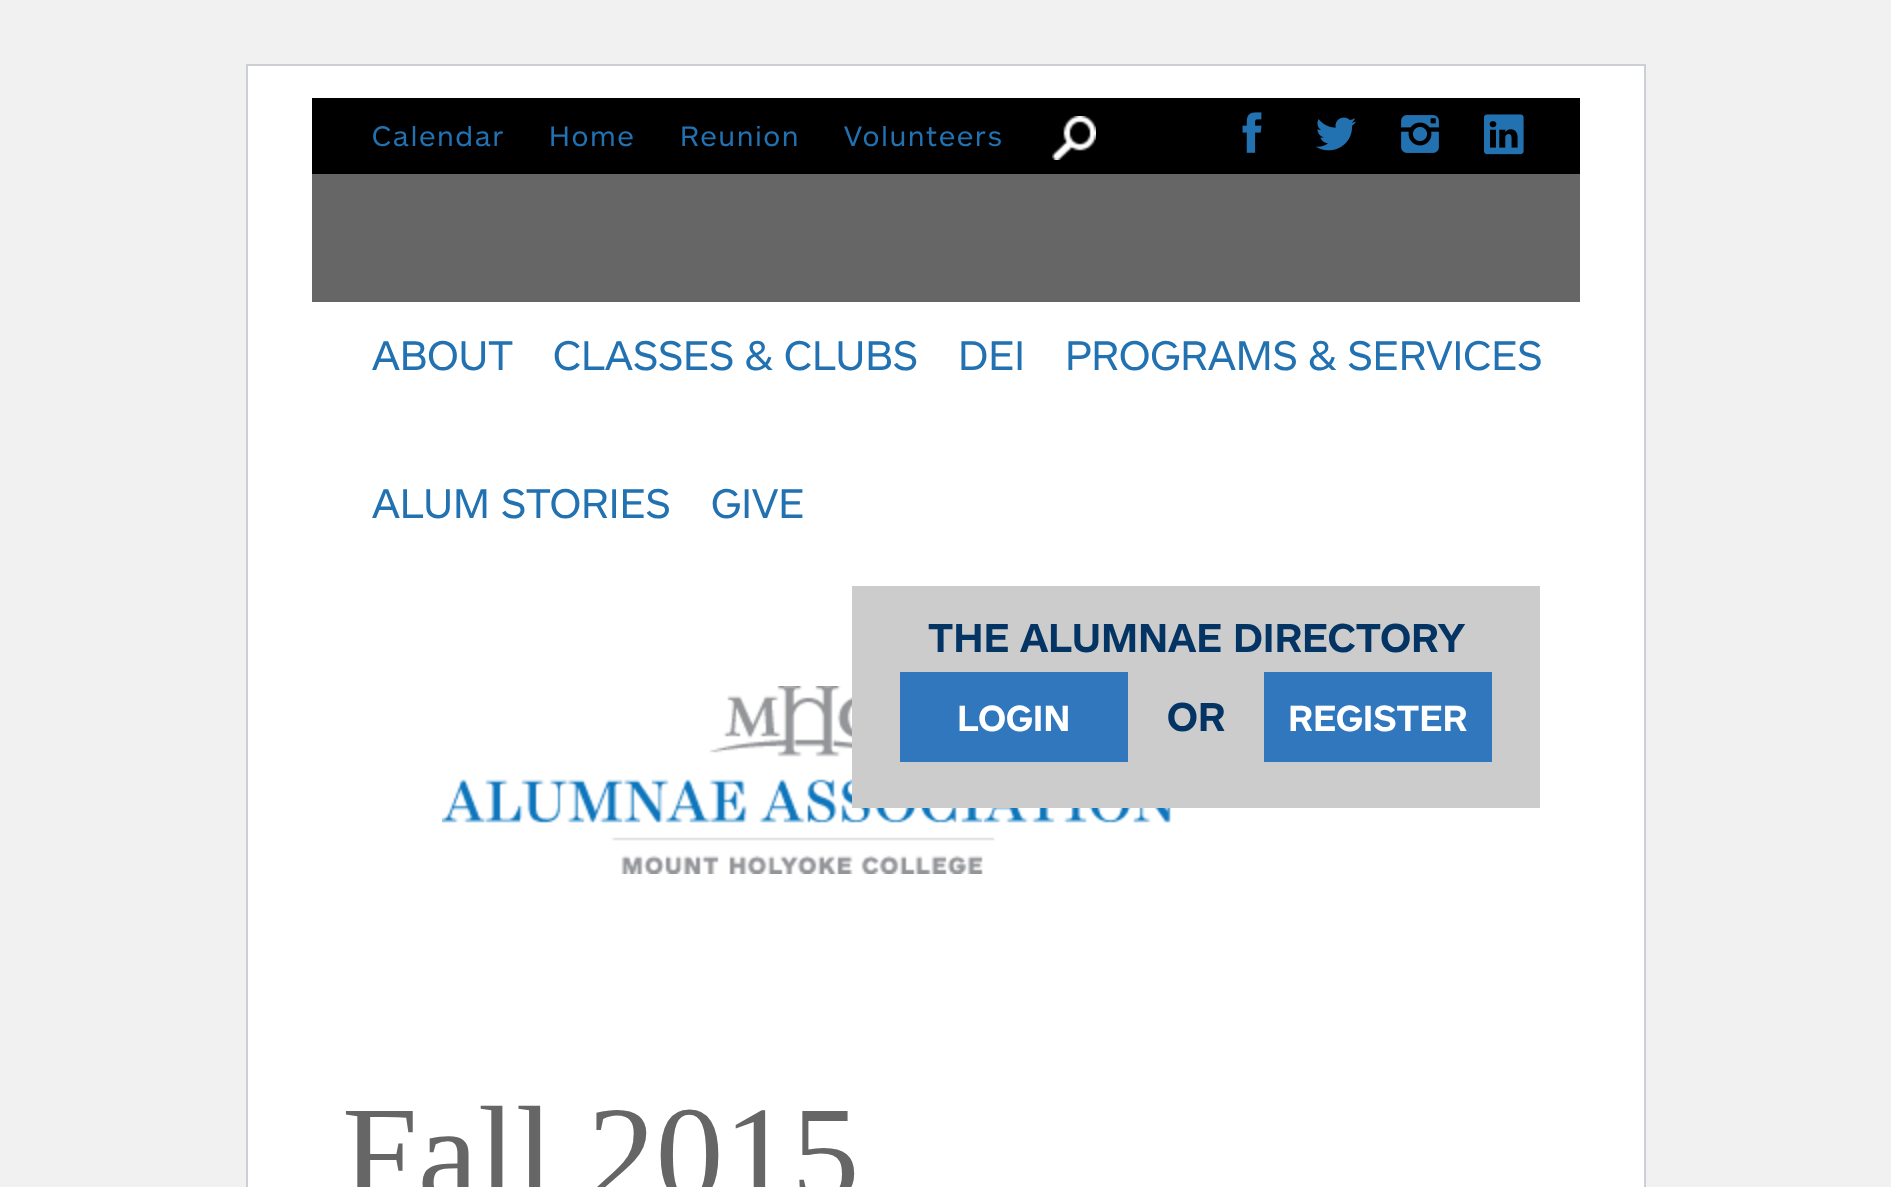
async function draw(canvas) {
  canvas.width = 1891;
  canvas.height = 1187;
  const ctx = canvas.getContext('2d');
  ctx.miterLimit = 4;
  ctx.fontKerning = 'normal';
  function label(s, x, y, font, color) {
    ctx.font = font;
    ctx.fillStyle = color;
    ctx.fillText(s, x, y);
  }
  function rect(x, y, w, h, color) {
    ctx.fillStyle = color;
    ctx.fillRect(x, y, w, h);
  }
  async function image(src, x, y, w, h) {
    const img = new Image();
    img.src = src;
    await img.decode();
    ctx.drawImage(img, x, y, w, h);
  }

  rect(0, 0, 1891, 1187, '#f1f1f1');
  ctx.fillStyle = '#fff';
  ctx.beginPath();
  ctx.rect(247, 65, 1398, 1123);
  ctx.fill();
  ctx.strokeStyle = '#ccd0d4';
  ctx.lineWidth = 2;
  ctx.stroke();
  rect(312, 98, 1268, 76, '#000');
  ctx.letterSpacing = '2px';
  label('Calendar', 372, 146, '28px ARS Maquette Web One', '#2271b1');
  label('Home', 549, 146, '28px ARS Maquette Web One', '#2271b1');
  label('Reunion', 680, 146, '28px ARS Maquette Web One', '#2271b1');
  label('Volunteers', 844, 146, '28px ARS Maquette Web One', '#2271b1');
  await image('assets/img1.png', 1052, 116, 44, 44);
  await image('assets/img2.png', 1242, 112, 20, 41);
  await image('assets/img3.png', 1316, 117, 41, 34);
  await image('assets/img4.png', 1401, 115, 38, 38);
  await image('assets/img5.png', 1483, 114, 41, 41);
  rect(312, 174, 1268, 128, '#666');
  ctx.letterSpacing = '0px';
  label('ABOUT', 372, 370, '41px ARS Maquette Web One', '#2271b1');
  label('CLASSES & CLUBS', 553, 370, '41px ARS Maquette Web One', '#2271b1');
  label('DEI', 958, 370, '41px ARS Maquette Web One', '#2271b1');
  label('PROGRAMS & SERVICES', 1065, 370, '41px ARS Maquette Web One', '#2271b1');
  label('ALUM STORIES', 372, 518, '41px ARS Maquette Web One', '#2271b1');
  label('GIVE', 711, 518, '41px ARS Maquette Web One', '#2271b1');
  await image('assets/img6.png', 442, 686, 729, 188);
  rect(852, 586, 688, 222, '#ccc');
  label('THE ALUMNAE DIRECTORY', 928, 652, 'bold 40px ARS Maquette Web One', '#043464');
  rect(900, 672, 228, 90, '#3177be');
  label('LOGIN', 957, 731, 'bold 36px ARS Maquette Web One', '#fff');
  label('OR', 1167, 731, 'bold 40px ARS Maquette Web One', '#043464');
  rect(1264, 672, 228, 90, '#3177be');
  label('REGISTER', 1288, 731, 'bold 36px ARS Maquette Web One', '#fff');
  label('Fall 2015', 342, 1200, '136px Liberation Serif', '#666');
}

draw(document.querySelector('canvas'));
